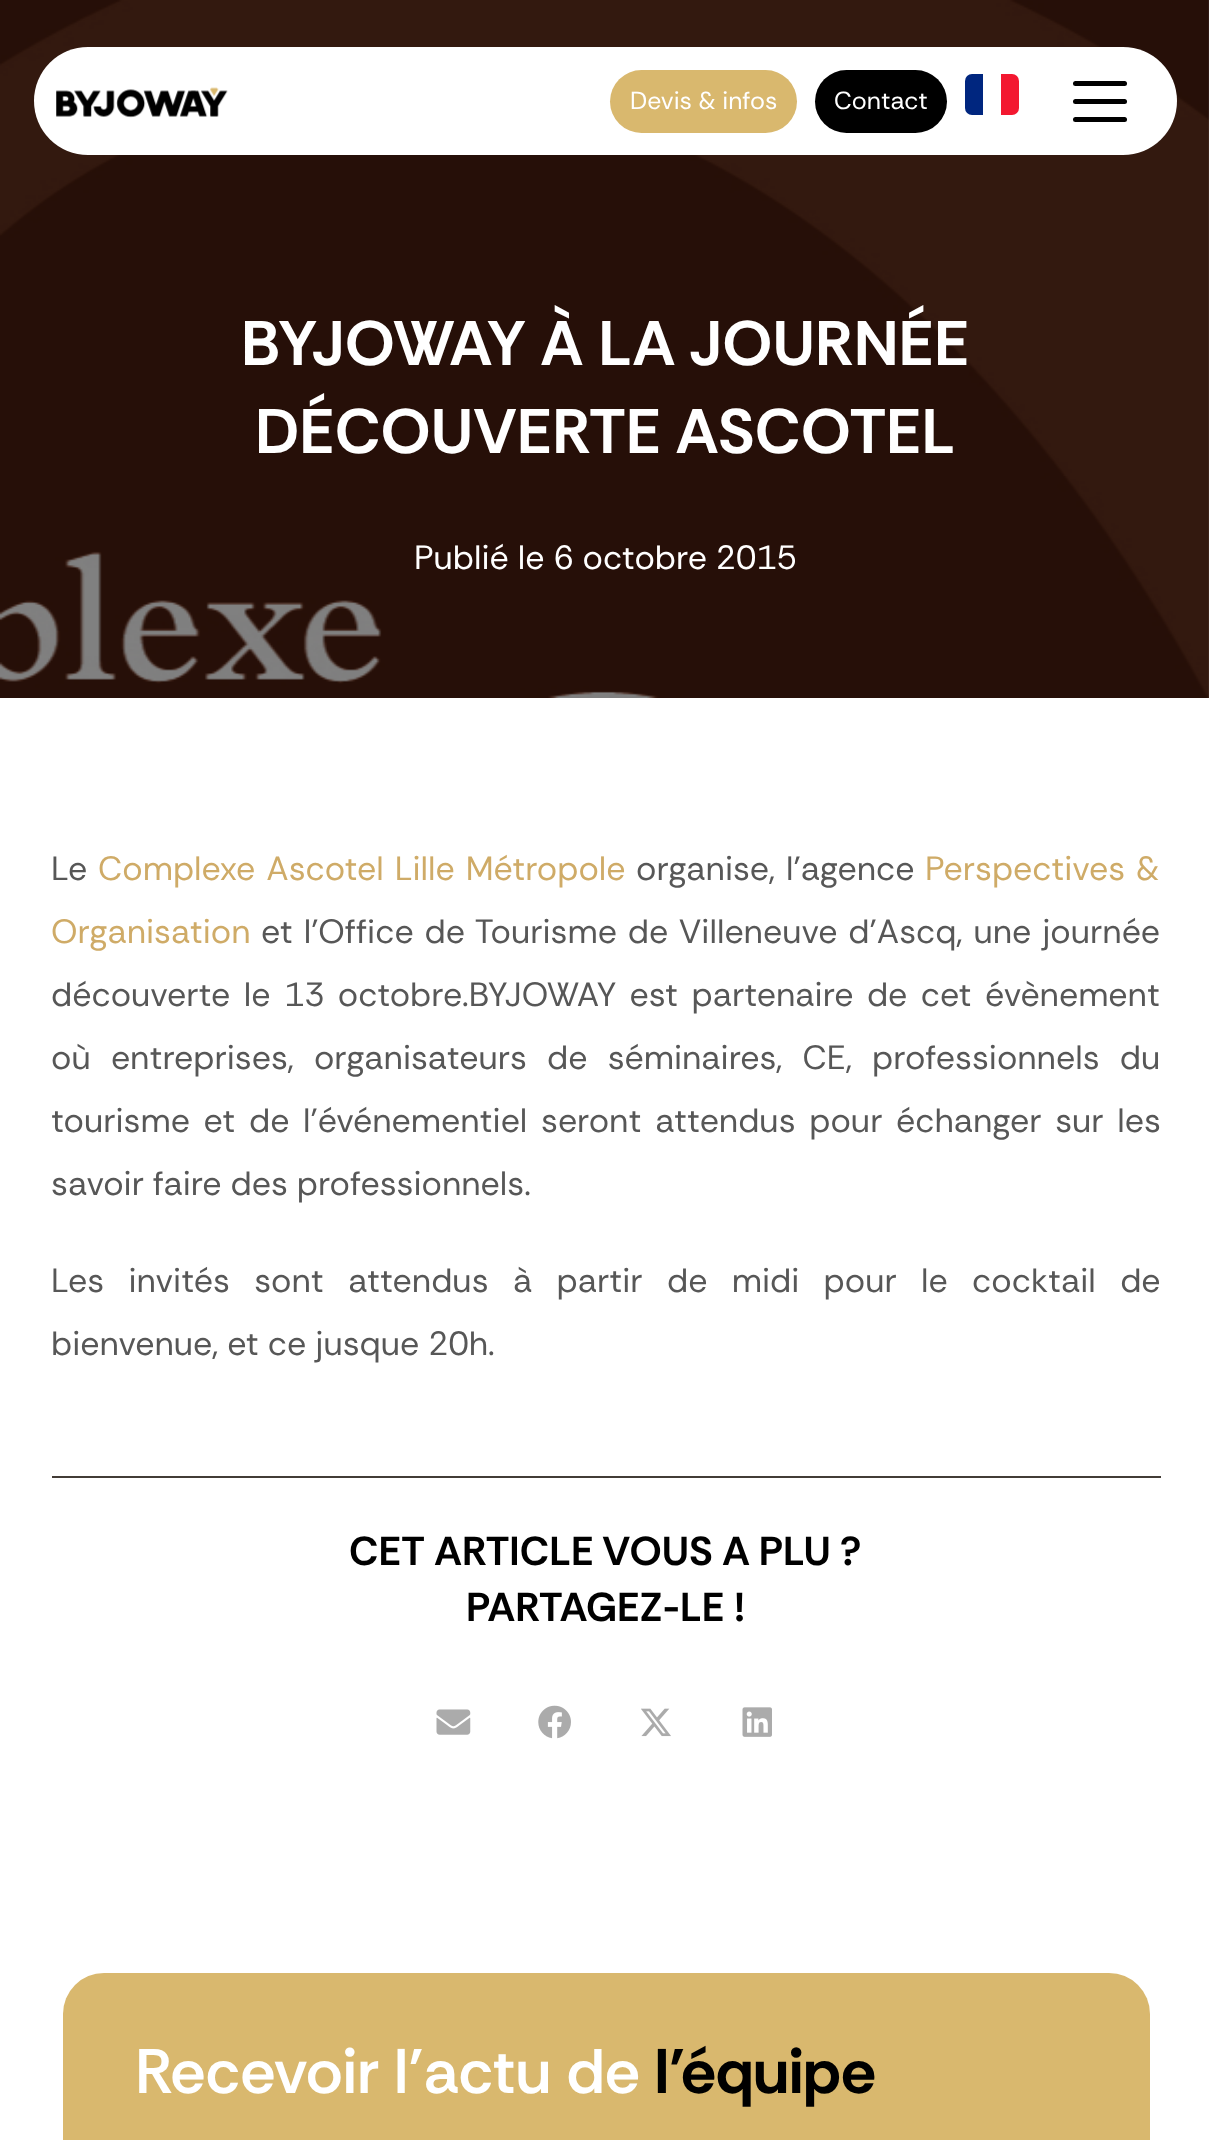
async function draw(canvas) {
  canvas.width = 1209;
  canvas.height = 2140;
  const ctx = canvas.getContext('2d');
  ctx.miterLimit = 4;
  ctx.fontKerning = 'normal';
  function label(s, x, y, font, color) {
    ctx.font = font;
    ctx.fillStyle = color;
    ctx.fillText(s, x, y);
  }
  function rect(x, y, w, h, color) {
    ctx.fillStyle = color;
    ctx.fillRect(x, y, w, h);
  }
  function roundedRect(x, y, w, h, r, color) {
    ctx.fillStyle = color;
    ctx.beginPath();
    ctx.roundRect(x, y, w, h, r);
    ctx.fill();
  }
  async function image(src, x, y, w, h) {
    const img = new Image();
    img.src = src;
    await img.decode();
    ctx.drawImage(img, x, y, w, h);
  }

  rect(0, 0, 1209, 2140, '#fff');
  await image('assets/img2.png', 0, 0, 1209, 698);
  roundedRect(34, 47, 1143, 108, 54, '#fff');
  await image('assets/img1.png', 56, 87, 172, 31);
  roundedRect(610, 70, 187, 63, 31.5, '#d9b86e');
  label('Devis & infos', 630, 109, '24.75px Rethink Sans', '#fff');
  roundedRect(815, 70, 132, 63, 31.5, '#000');
  label('Contact', 834, 109, '24.75px Rethink Sans', '#fff');
  ctx.fillStyle = '#00267f';
  ctx.beginPath();
  ctx.roundRect(965, 74, 18, 41, [7, 0, 0, 7]);
  ctx.fill();
  ctx.fillStyle = '#f31830';
  ctx.beginPath();
  ctx.roundRect(1001, 74, 18, 41, [0, 7, 7, 0]);
  ctx.fill();
  roundedRect(1073, 99, 54, 5, 2.5, '#000');
  roundedRect(1073, 81, 54, 5, 2.5, '#000');
  roundedRect(1073, 117, 54, 5, 2.5, '#000');
  label('BYJOWAY À LA JOURNÉE', 241, 365, 'bold 63px Rethink Sans', '#fff');
  label('DÉCOUVERTE ASCOTEL', 255, 453, 'bold 63px Rethink Sans', '#fff');
  label('Publié le 6 octobre 2015', 414, 569, '33.75px Rethink Sans', '#fff');
  label('Le', 51, 880, '33.75px Rethink Sans', '#575757');
  ctx.wordSpacing = '2px';
  label('Complexe Ascotel Lille Métropole', 98, 880, '33.75px Rethink Sans', '#cfab67');
  label('organise, l’agence', 636, 880, '33.75px Rethink Sans', '#575757');
  label('Perspectives &', 925, 880, '33.75px Rethink Sans', '#cfab67');
  ctx.wordSpacing = '0px';
  label('Organisation', 51, 943, '33.75px Rethink Sans', '#cfab67');
  ctx.wordSpacing = '2px';
  label('et l’Office de Tourisme de Villeneuve d’Ascq, une journée', 261, 943, '33.75px Rethink Sans', '#575757');
  ctx.wordSpacing = '4.5px';
  label('découverte le 13 octobre.BYJOWAY est partenaire de cet évènement', 51, 1006, '33.75px Rethink Sans', '#575757');
  ctx.wordSpacing = '11.25px';
  label('où entreprises, organisateurs de séminaires, CE, professionnels du', 51, 1069, '33.75px Rethink Sans', '#575757');
  ctx.wordSpacing = '4.75px';
  label('tourisme et de l’événementiel seront attendus pour échanger sur les', 51, 1132, '33.75px Rethink Sans', '#575757');
  ctx.wordSpacing = '0px';
  label('savoir faire des professionnels.', 51, 1195, '33.75px Rethink Sans', '#575757');
  ctx.wordSpacing = '15.4px';
  label('Les invités sont attendus à partir de midi pour le cocktail de', 51, 1292, '33.75px Rethink Sans', '#575757');
  ctx.wordSpacing = '0px';
  label('bienvenue, et ce jusque 20h.', 51, 1355, '33.75px Rethink Sans', '#575757');
  rect(52, 1476, 1109, 2, '#423c36');
  label('CET ARTICLE VOUS A PLU ?', 349, 1565, 'bold 40.5px Rethink Sans', '#000');
  label('PARTAGEZ-LE !', 466, 1621, 'bold 40.5px Rethink Sans', '#000');
  await image('assets/img3.png', 436, 1709, 35, 26);
  await image('assets/img4.png', 538, 1705, 33, 34);
  await image('assets/img5.png', 641, 1708, 30, 29);
  await image('assets/img6.png', 742, 1707, 30, 30);
  roundedRect(63, 1973, 1087, 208, 41, '#d9b86e');
  label('Recevoir l’actu de', 135, 2093, '600 63px Rethink Sans', '#fff');
  label('l’équipe', 655, 2093, 'bold 63px Rethink Sans', '#000');
}

draw(document.querySelector('canvas'));
